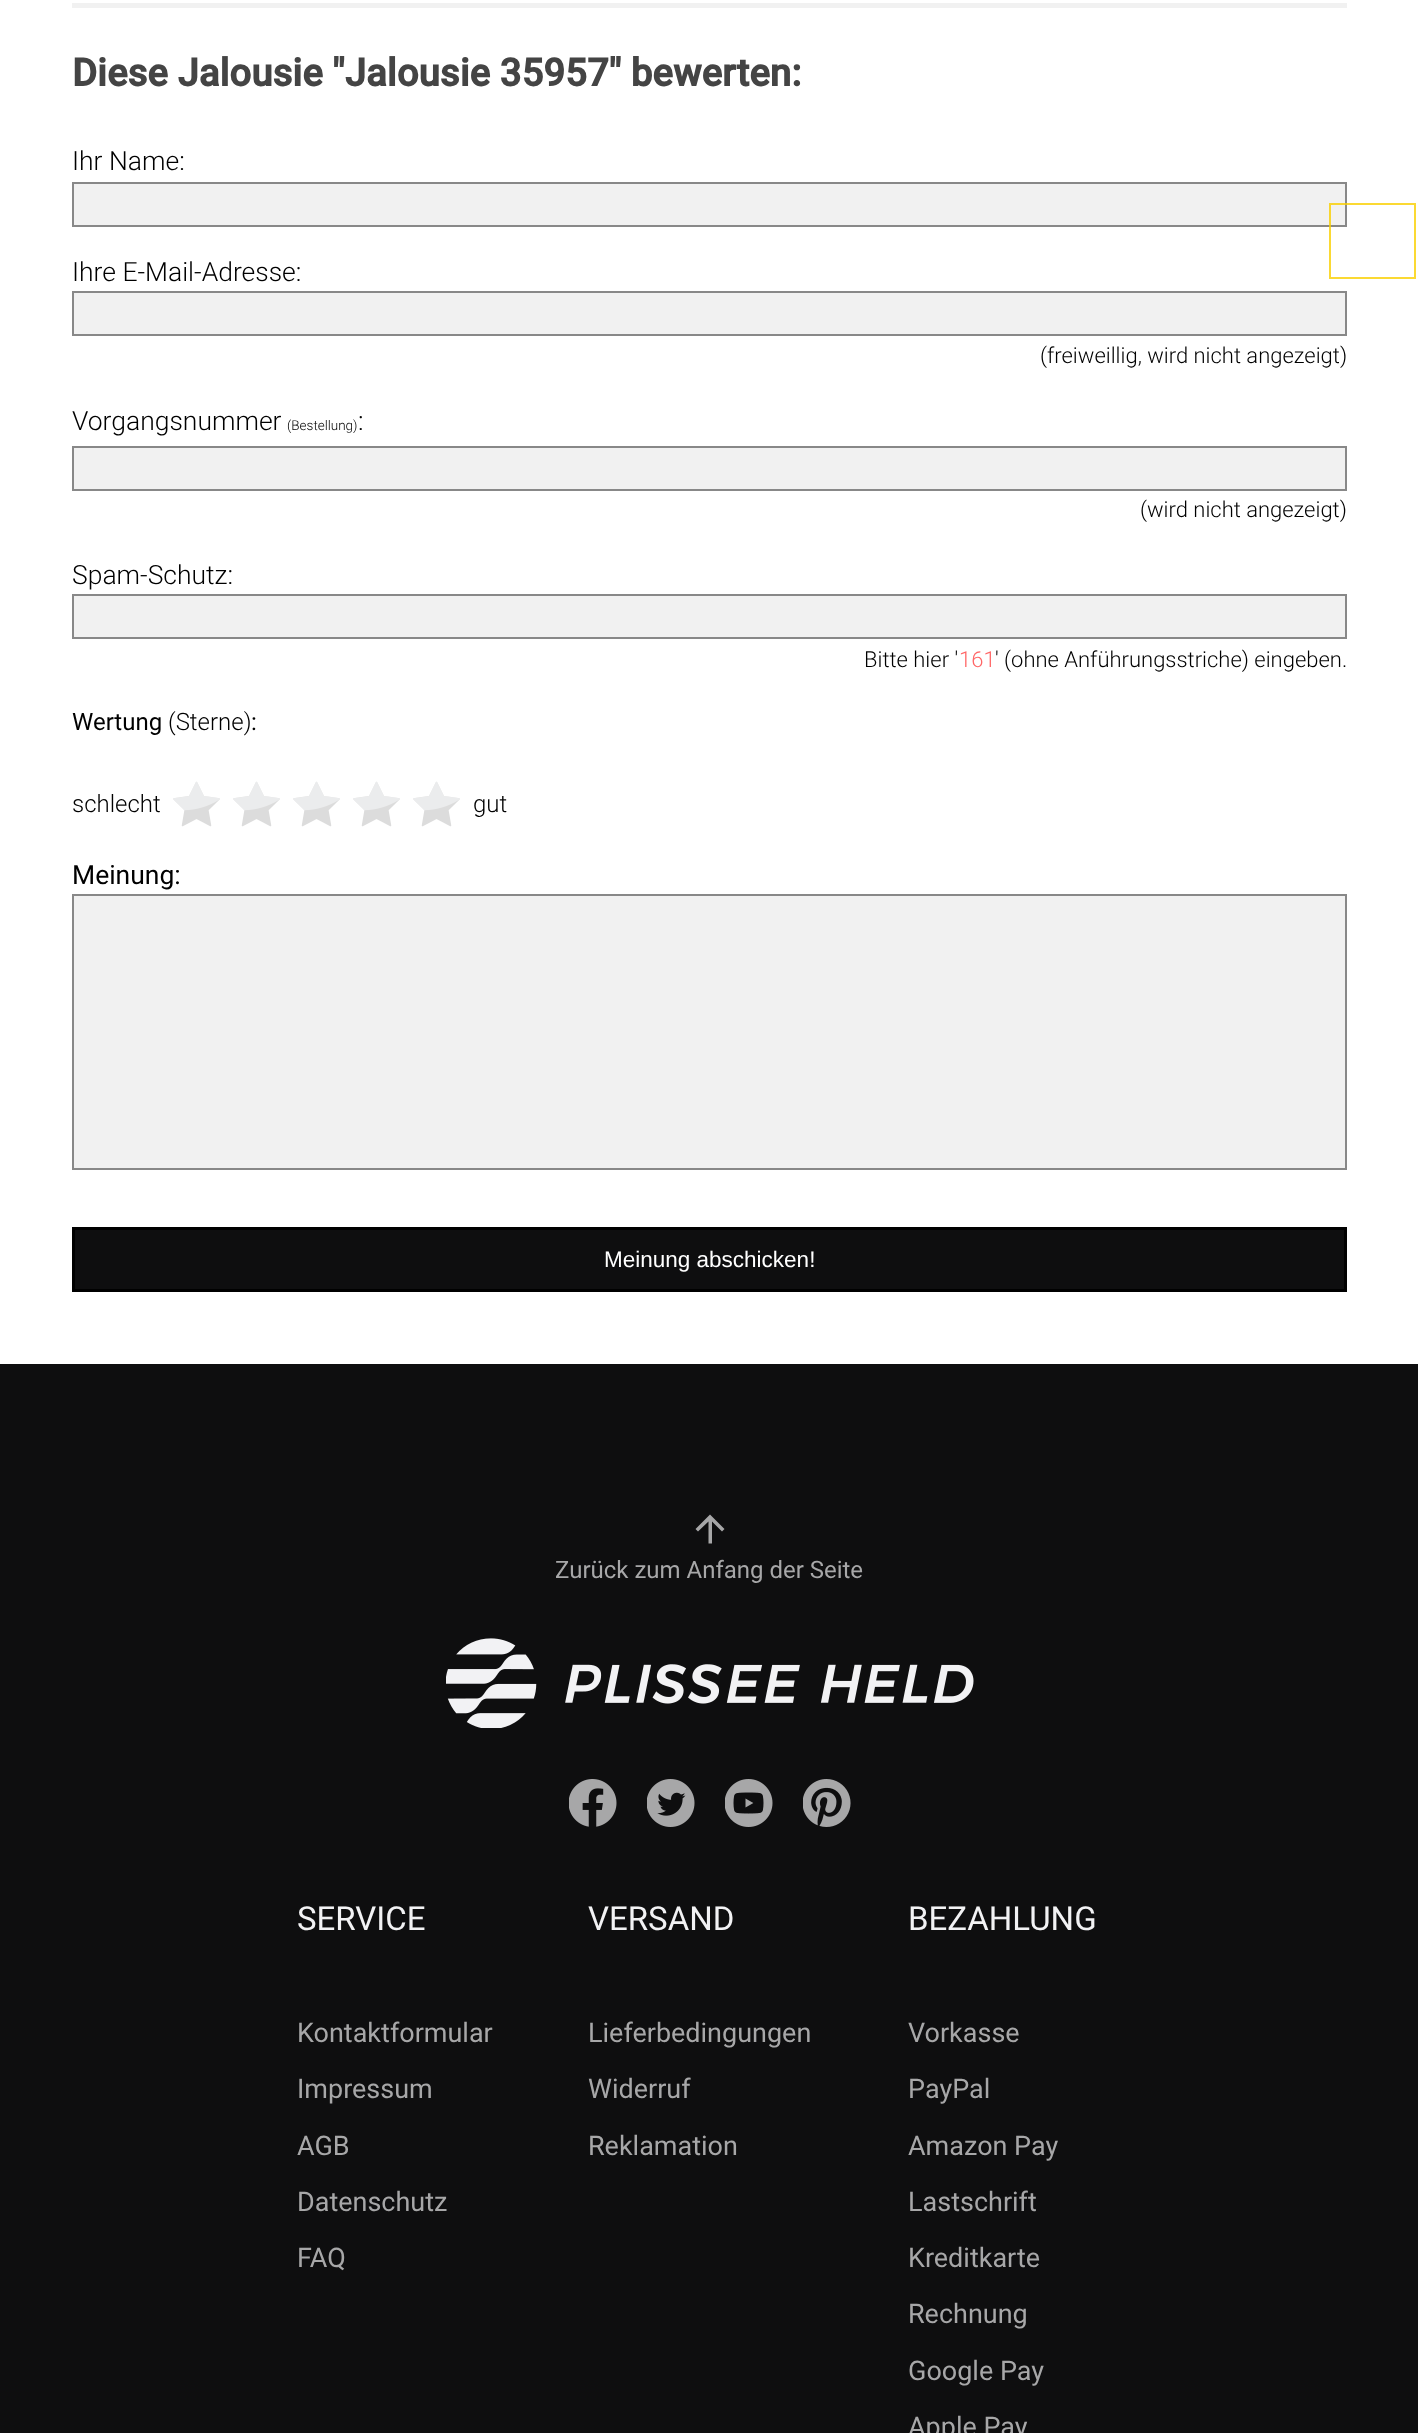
async function draw(canvas) {
  canvas.width = 1418;
  canvas.height = 2433;
  const ctx = canvas.getContext('2d');
  ctx.miterLimit = 4;
  ctx.fontKerning = 'normal';
  function label(s, x, y, font, color) {
    ctx.font = font;
    ctx.fillStyle = color;
    ctx.fillText(s, x, y);
  }
  function rect(x, y, w, h, color) {
    ctx.fillStyle = color;
    ctx.fillRect(x, y, w, h);
  }
  async function image(src, x, y, w, h) {
    const img = new Image();
    img.src = src;
    await img.decode();
    ctx.drawImage(img, x, y, w, h);
  }
  let path;

  rect(0, 0, 1418, 2433, '#fff');
  rect(72, 3, 1275, 5, '#f1f1f1');
  label('Diese Jalousie "Jalousie 35957" bewerten:', 72, 86, 'bold 38.4px Roboto', '#444');
  label('Ihr Name:', 72, 170, '300 26.5px Roboto', '#000');
  ctx.fillStyle = '#f1f1f1';
  ctx.beginPath();
  ctx.rect(73, 183, 1273, 43);
  ctx.fill();
  ctx.strokeStyle = '#888';
  ctx.lineWidth = 2;
  ctx.stroke();
  label('Ihre E-Mail-Adresse:', 72, 281, '300 26.5px Roboto', '#000');
  ctx.fillStyle = '#f1f1f1';
  ctx.beginPath();
  ctx.rect(73, 292, 1273, 43);
  ctx.fill();
  ctx.stroke();
  label('(freiweillig, wird nicht angezeigt)', 1040, 363, '300 22px Roboto', '#000');
  label('Vorgangsnummer', 72, 430, '300 26.5px Roboto', '#000');
  label('(Bestellung)', 287, 430, '300 13.5px Roboto', '#000');
  label(':', 358, 430, '300 26.5px Roboto', '#000');
  ctx.fillStyle = '#f1f1f1';
  ctx.beginPath();
  ctx.rect(73, 447, 1273, 43);
  ctx.fill();
  ctx.stroke();
  label('(wird nicht angezeigt)', 1140, 517, '300 22px Roboto', '#000');
  label('Spam-Schutz:', 72, 584, '300 26.5px Roboto', '#000');
  ctx.fillStyle = '#f1f1f1';
  ctx.beginPath();
  ctx.rect(73, 595, 1273, 43);
  ctx.fill();
  ctx.stroke();
  label('Bitte hier \'', 864, 667, '300 22px Roboto', '#000');
  label('161', 959, 667, '300 22px Roboto', '#f66');
  label('\' (ohne Anführungsstriche) eingeben.', 995, 667, '300 22px Roboto', '#000');
  label('Wertung', 72, 730, '24px Roboto', '#000');
  label('(Sterne)', 168, 730, '300 24px Roboto', '#000');
  label(':', 251, 730, '24px Roboto', '#000');
  label('schlecht', 72, 812, '300 24px Roboto', '#000');
  await image('assets/img1.png', 173, 781, 47, 46);
  await image('assets/img1.png', 233, 781, 47, 46);
  await image('assets/img1.png', 293, 781, 47, 46);
  await image('assets/img1.png', 353, 781, 47, 46);
  await image('assets/img1.png', 413, 781, 47, 46);
  label('gut', 473, 812, '300 24px Roboto', '#000');
  label('Meinung:', 72, 884, '26.5px Roboto', '#000');
  ctx.fillStyle = '#f1f1f1';
  ctx.beginPath();
  ctx.rect(73, 895, 1273, 274);
  ctx.fill();
  ctx.stroke();
  ctx.fillStyle = '#0e0e0f';
  ctx.beginPath();
  ctx.rect(73.5, 1228.5, 1272, 62);
  ctx.fill();
  ctx.strokeStyle = '#000';
  ctx.lineWidth = 3;
  ctx.stroke();
  label('Meinung abschicken!', 604, 1267, '22.5px Liberation Sans', '#fff');
  ctx.strokeStyle = '#facf00cc';
  ctx.lineWidth = 2;
  ctx.strokeRect(1330, 204, 85, 74);
  rect(0, 1364, 1418, 1069, '#0e0e0f');
  ctx.fillStyle = '#a7a7a8';
  path = new Path2D('M695.5 1529L698 1531.5L708.5 1521.5V1543.5H712V1521.5L722 1531.5L724.5 1529L710 1514.5Z');
  ctx.fill(path);
  label('Zurück zum Anfang der Seite', 555, 1578, '24px Roboto', '#a7a7a8');
  await image('assets/img2.png', 446, 1638, 528, 90);
  await image('assets/img3.png', 569, 1779, 48, 48);
  await image('assets/img4.png', 647, 1779, 48, 48);
  await image('assets/img5.png', 725, 1779, 48, 48);
  await image('assets/img6.png', 803, 1779, 48, 48);
  label('SERVICE', 297, 1930, '33px Roboto', '#f2f2f4');
  label('Kontaktformular', 297, 2042, '27px Roboto', '#a7a7a8');
  label('Impressum', 297, 2098, '27px Roboto', '#a7a7a8');
  label('AGB', 297, 2155, '27px Roboto', '#a7a7a8');
  label('Datenschutz', 297, 2211, '27px Roboto', '#a7a7a8');
  label('FAQ', 297, 2267, '27px Roboto', '#a7a7a8');
  label('VERSAND', 588, 1930, '33px Roboto', '#f2f2f4');
  label('Lieferbedingungen', 588, 2042, '27px Roboto', '#a7a7a8');
  label('Widerruf', 588, 2098, '27px Roboto', '#a7a7a8');
  label('Reklamation', 588, 2155, '27px Roboto', '#a7a7a8');
  label('BEZAHLUNG', 908, 1930, '33px Roboto', '#f2f2f4');
  label('Vorkasse', 908, 2042, '27px Roboto', '#a7a7a8');
  label('PayPal', 908, 2098, '27px Roboto', '#a7a7a8');
  label('Amazon Pay', 908, 2155, '27px Roboto', '#a7a7a8');
  label('Lastschrift', 908, 2211, '27px Roboto', '#a7a7a8');
  label('Kreditkarte', 908, 2267, '27px Roboto', '#a7a7a8');
  label('Rechnung', 908, 2323, '27px Roboto', '#a7a7a8');
  label('Google Pay', 908, 2380, '27px Roboto', '#a7a7a8');
  label('Apple Pay', 908, 2436, '27px Roboto', '#a7a7a8');
}

draw(document.querySelector('canvas'));
